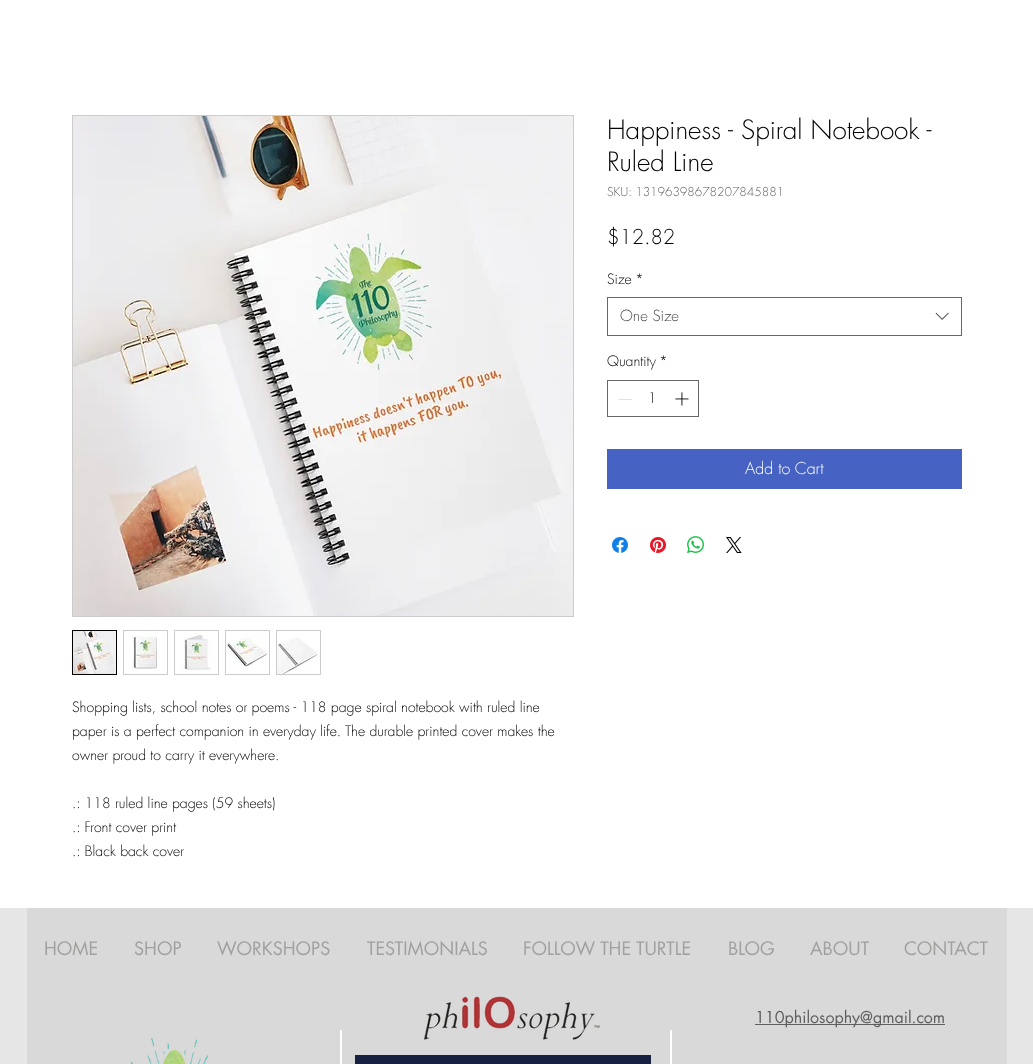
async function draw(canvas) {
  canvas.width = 1033;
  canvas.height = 1064;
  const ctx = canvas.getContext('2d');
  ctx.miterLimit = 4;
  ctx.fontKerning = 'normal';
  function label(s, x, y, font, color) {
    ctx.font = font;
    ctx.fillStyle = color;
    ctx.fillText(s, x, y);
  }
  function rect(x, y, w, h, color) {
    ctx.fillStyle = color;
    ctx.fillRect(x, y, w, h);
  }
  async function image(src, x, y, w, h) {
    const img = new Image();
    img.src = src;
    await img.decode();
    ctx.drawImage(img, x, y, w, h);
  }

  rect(0, 0, 1033, 1064, '#fff');
  label('Happiness - Spiral Notebook -', 607, 139, '300 26px futura', '#000');
  label('Ruled Line', 607, 171, '300 26px futura', '#000');
  label('SKU: 13196398678207845881', 607, 196, '300 12px futura', '#605e5e');
  label('$12.82', 607, 244, '300 20px futura', '#000');
  label('Size', 607, 284, '300 14px futura', '#000');
  label('*', 635, 284, '300 14px futura', '#000');
  ctx.strokeStyle = '#666';
  ctx.strokeRect(607.5, 297.5, 354, 38);
  label('One Size', 620, 321, '300 15px futura', '#444');
  await image('assets/img1.png', 935, 312, 14, 8);
  label('Quantity', 607, 366, '300 14px futura', '#000');
  label('*', 659, 366, '300 14px futura', '#000');
  ctx.strokeRect(607.5, 380.5, 91, 36);
  rect(619, 399, 13, 1, '#e3e3e3');
  label('1', 648, 403, '300 14px futura', '#000');
  await image('assets/img2.png', 675, 392, 14, 14);
  rect(607, 449, 355, 40, '#4662c2');
  label('Add to Cart', 745, 474, '300 16px futura', '#fff');
  await image('assets/img3.png', 612, 537, 16, 16);
  await image('assets/img4.png', 650, 537, 16, 16);
  await image('assets/img5.png', 687, 536, 17, 17);
  await image('assets/img6.png', 726, 537, 16, 16);
  ctx.strokeStyle = '#ccc';
  ctx.strokeRect(72.5, 115.5, 501, 501);
  await image('assets/img7.png', 73, 116, 500, 500);
  ctx.strokeStyle = '#000';
  ctx.strokeRect(72.5, 630.5, 44, 44);
  await image('assets/img8.png', 73, 631, 43, 43);
  rect(123, 630, 45, 45, '#ccc');
  await image('assets/img9.png', 124, 631, 43, 43);
  rect(174, 630, 45, 45, '#ccc');
  await image('assets/img10.png', 175, 631, 43, 43);
  rect(225, 630, 45, 45, '#ccc');
  await image('assets/img11.png', 226, 631, 43, 43);
  rect(276, 630, 45, 45, '#ccc');
  await image('assets/img12.png', 277, 631, 43, 43);
  label('Shopping lists, school notes or poems - 118 page spiral notebook with ruled line', 72, 712, '300 14px futura', '#000');
  label('paper is a perfect companion in everyday life. The durable printed cover makes the', 72, 736, '300 14px futura', '#000');
  label('owner proud to carry it everywhere.', 72, 760, '300 14px futura', '#000');
  label('.: 118 ruled line pages (59 sheets)', 72, 808, '300 14px futura', '#000');
  label('.: Front cover print', 72, 832, '300 14px futura', '#000');
  label('.: Black back cover', 72, 856, '300 14px futura', '#000');
  rect(0, 908, 1033, 156, '#e6e6e6');
  rect(27, 908, 980, 156, '#d9d9d9');
  label('HOME', 44, 955, '18px futura', '#a0a09f');
  label('SHOP', 134, 955, '18px futura', '#a0a09f');
  label('WORKSHOPS', 217, 955, '18px futura', '#a0a09f');
  label('TESTIMONIALS', 367, 955, '18px futura', '#a0a09f');
  label('FOLLOW THE TURTLE', 523, 955, '18px futura', '#a0a09f');
  label('BLOG', 728, 955, '18px futura', '#a0a09f');
  label('ABOUT', 810, 955, '18px futura', '#a0a09f');
  label('CONTACT', 904, 955, '18px futura', '#a0a09f');
  await image('assets/img13.png', 424, 996, 176, 44);
  rect(755, 1024, 190, 1, '#605e5e');
  label('110philosophy@gmail.com', 755, 1023, '16px futura', '#605e5e');
  await image('assets/img14.png', 130, 1038, 79, 26);
  rect(340, 1030, 2, 34, '#fff');
  rect(355, 1055, 296, 9, '#172141');
  rect(670, 1030, 2, 34, '#fff');
}

draw(document.querySelector('canvas'));
